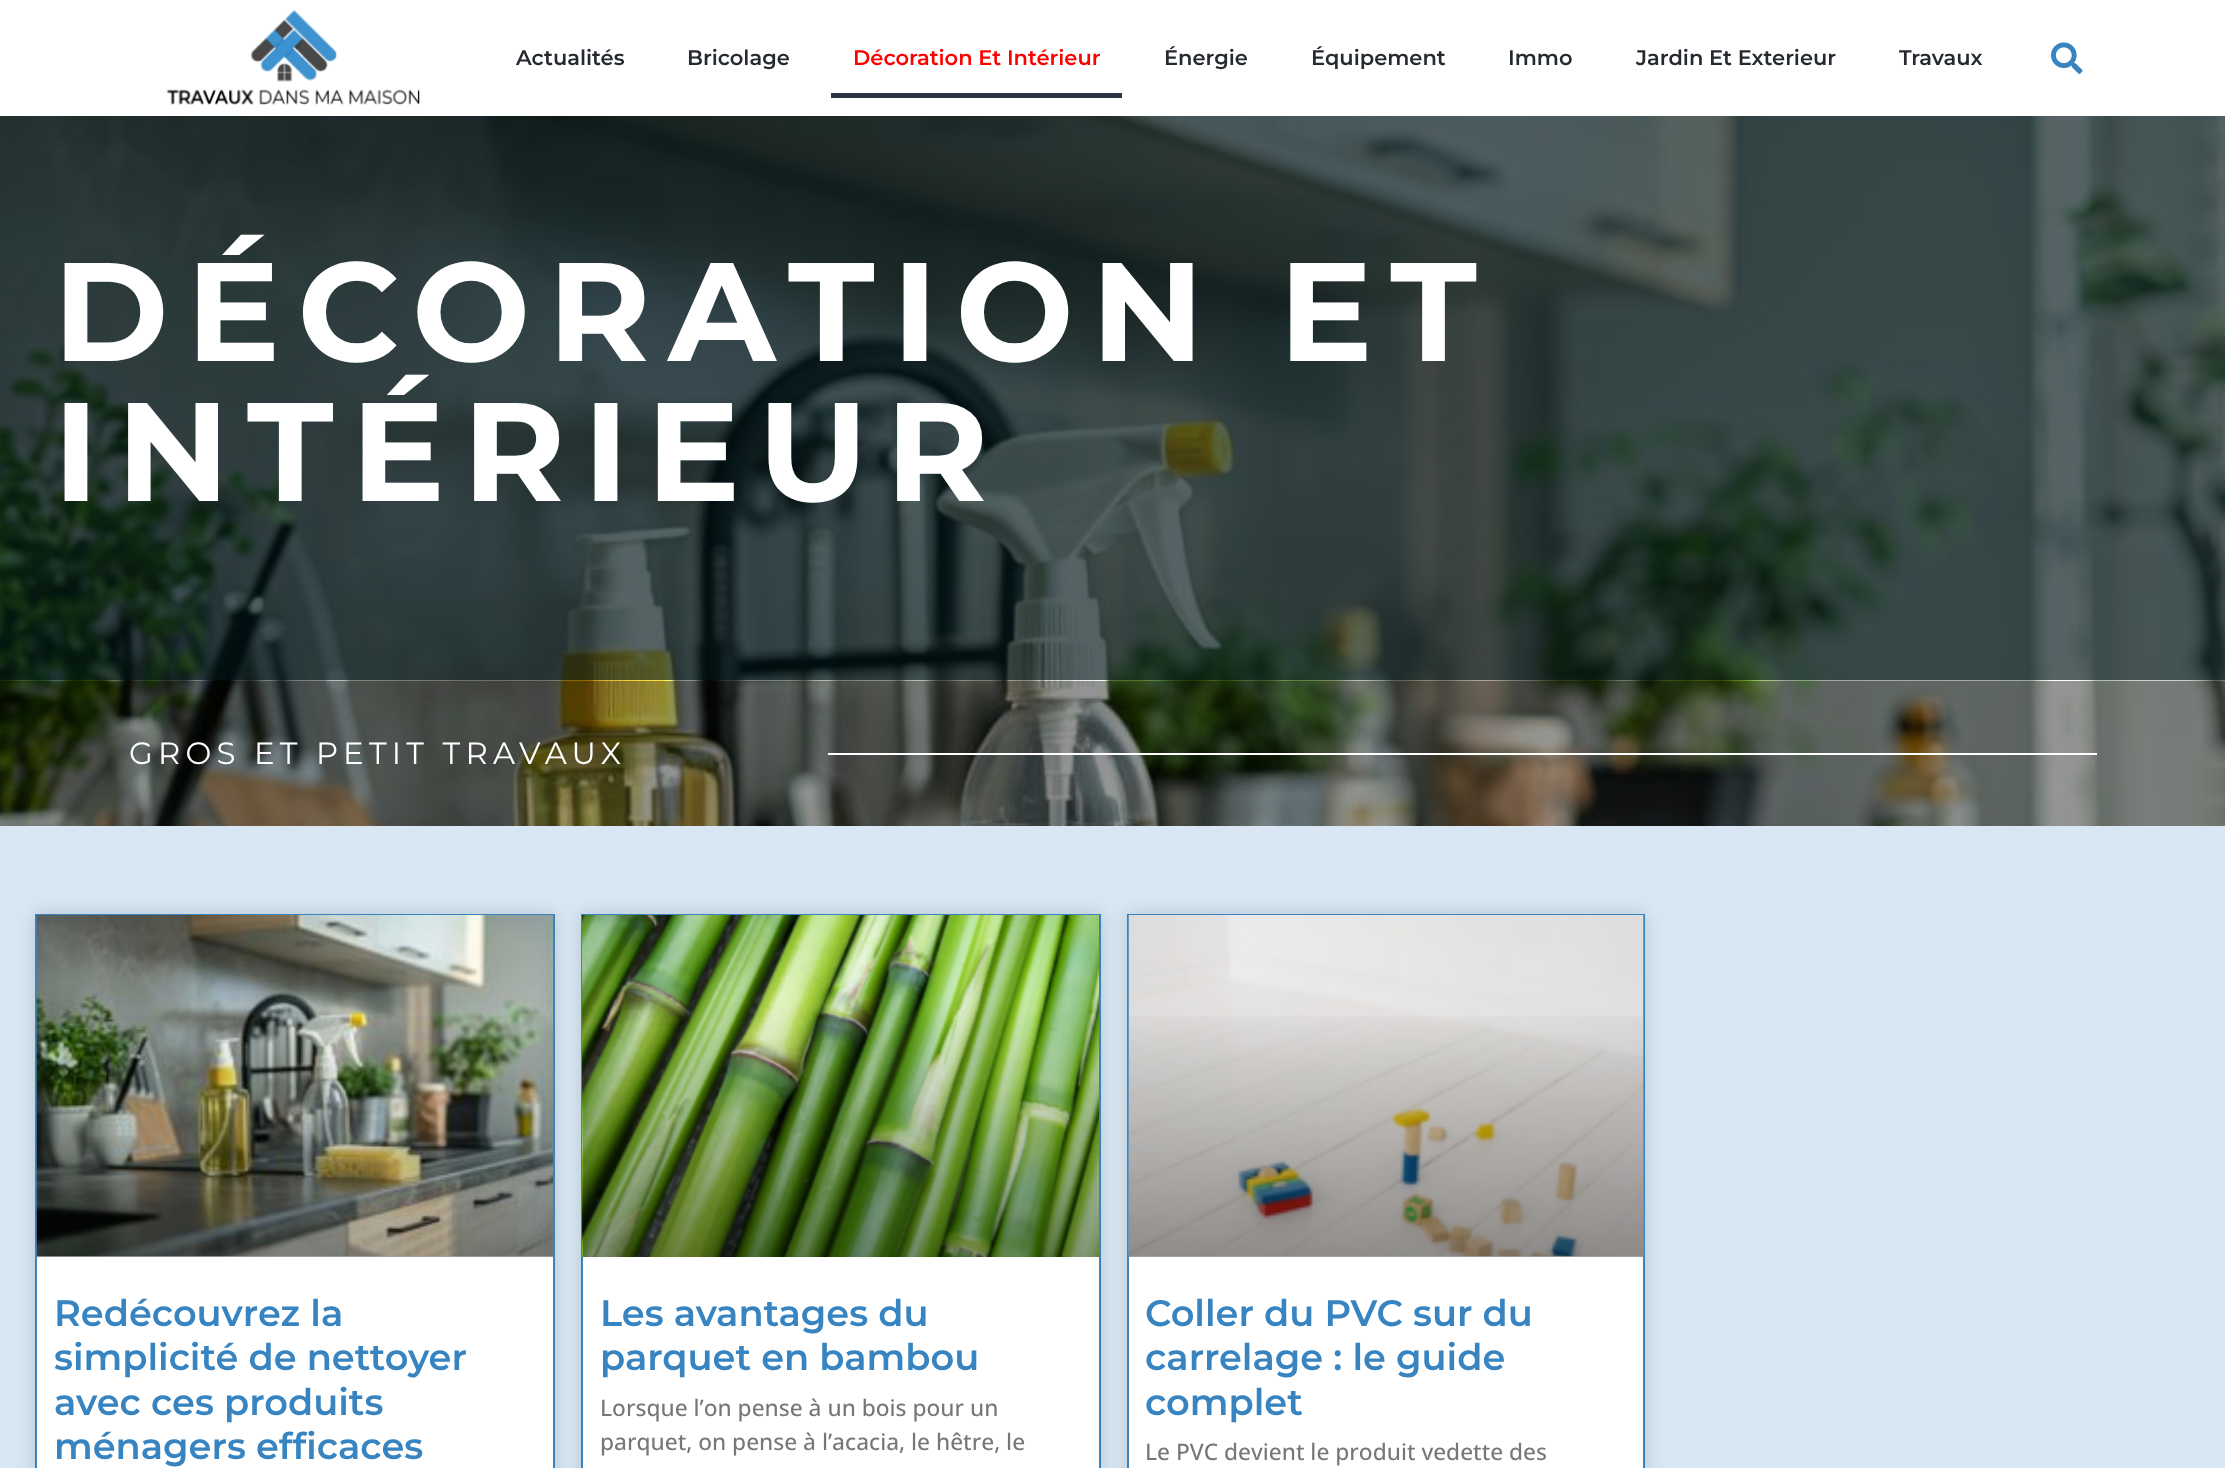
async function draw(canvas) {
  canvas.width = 2225;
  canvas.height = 1468;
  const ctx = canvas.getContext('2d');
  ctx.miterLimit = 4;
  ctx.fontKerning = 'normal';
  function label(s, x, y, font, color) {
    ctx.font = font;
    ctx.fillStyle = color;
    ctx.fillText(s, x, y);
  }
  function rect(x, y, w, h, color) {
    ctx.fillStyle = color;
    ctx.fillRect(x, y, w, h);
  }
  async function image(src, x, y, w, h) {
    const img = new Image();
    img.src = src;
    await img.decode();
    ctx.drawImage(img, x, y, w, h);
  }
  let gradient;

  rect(0, 0, 2225, 1468, '#fff');
  await image('assets/img1.png', 166, 9, 254, 96);
  label('Actualités', 516, 65, '600 21px Montserrat', '#252930');
  label('Bricolage', 687, 65, '600 21px Montserrat', '#252930');
  label('Décoration Et Intérieur', 853, 65, '600 21px Montserrat', '#f00');
  rect(831, 93, 291, 5, '#2b3442');
  label('Énergie', 1164, 65, '600 21px Montserrat', '#252930');
  label('Équipement', 1311, 65, '600 21px Montserrat', '#252930');
  label('Immo', 1508, 65, '600 21px Montserrat', '#252930');
  label('Jardin Et Exterieur', 1636, 65, '600 21px Montserrat', '#252930');
  label('Travaux', 1899, 65, '600 21px Montserrat', '#252930');
  await image('assets/img2.png', 2051, 42, 32, 32);
  await image('assets/img3.png', 0, 116, 2225, 564);
  ctx.letterSpacing = '17.5px';
  label('DÉCORATION ET', 53, 361, 'bold 140px Montserrat', '#fff');
  label('INTÉRIEUR', 53, 501, 'bold 140px Montserrat', '#fff');
  await image('assets/img4.png', 0, 680, 2225, 146);
  ctx.letterSpacing = '5.25px';
  label('GROS ET PETIT TRAVAUX', 129, 764, '30.75px Montserrat', '#fff');
  rect(828, 753, 1269, 2, '#fff');
  rect(0, 826, 2225, 642, '#d8e7f3');
  ctx.fillStyle = '#00000026';
  ctx.filter = 'blur(9px)';
  ctx.beginPath();
  ctx.rect(35, 914, 520, 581);
  ctx.fill();
  ctx.filter = 'none';
  rect(37, 1256, 516, 212, '#fff');
  ctx.strokeStyle = '#3784c0';
  ctx.lineWidth = 2;
  ctx.strokeRect(36, 915, 518, 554);
  await image('assets/img5.png', 36, 915, 517, 342);
  gradient = ctx.createLinearGradient(295, 1257, 295, 915);
  gradient.addColorStop(0, '#00000059');
  gradient.addColorStop(0.75, '#00000000');
  ctx.fillStyle = gradient;
  ctx.fillRect(37, 1016, 516, 241);
  ctx.letterSpacing = '0px';
  label('Redécouvrez la', 54, 1326, '600 36.75px Montserrat', '#3784c0');
  label('simplicité de nettoyer', 54, 1370, '600 36.75px Montserrat', '#3784c0');
  label('avec ces produits', 54, 1415, '600 36.75px Montserrat', '#3784c0');
  label('ménagers efficaces', 54, 1459, '600 36.75px Montserrat', '#3784c0');
  ctx.fillStyle = '#00000026';
  ctx.filter = 'blur(9px)';
  ctx.beginPath();
  ctx.rect(581, 914, 520, 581);
  ctx.fill();
  ctx.filter = 'none';
  rect(583, 1257, 516, 211, '#fff');
  ctx.strokeRect(582, 915, 518, 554);
  await image('assets/img6.png', 582, 915, 517, 342);
  label('Les avantages du', 600, 1326, '600 36.75px Montserrat', '#3784c0');
  label('parquet en bambou', 600, 1370, '600 36.75px Montserrat', '#3784c0');
  label('Lorsque l’on pense à un bois pour un', 600, 1416, '500 22.75px Open Sans', '#777');
  label('parquet, on pense à l’acacia, le hêtre, le', 600, 1450, '500 22.75px Open Sans', '#777');
  ctx.fillStyle = '#00000026';
  ctx.filter = 'blur(9px)';
  ctx.beginPath();
  ctx.rect(1127, 914, 518, 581);
  ctx.fill();
  ctx.filter = 'none';
  rect(1129, 1256, 514, 212, '#fff');
  ctx.strokeRect(1128, 915, 516, 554);
  await image('assets/img7.png', 1128, 915, 516, 342);
  gradient = ctx.createLinearGradient(1386, 1257, 1386, 915);
  gradient.addColorStop(0, '#00000059');
  gradient.addColorStop(0.75, '#00000000');
  ctx.fillStyle = gradient;
  ctx.fillRect(1129, 1016, 514, 241);
  label('Coller du PVC sur du', 1145, 1326, '600 36.75px Montserrat', '#3784c0');
  label('carrelage : le guide', 1145, 1370, '600 36.75px Montserrat', '#3784c0');
  label('complet', 1145, 1415, '600 36.75px Montserrat', '#3784c0');
  label('Le PVC devient le produit vedette des', 1145, 1460, '500 22.75px Open Sans', '#777');
}

draw(document.querySelector('canvas'));
